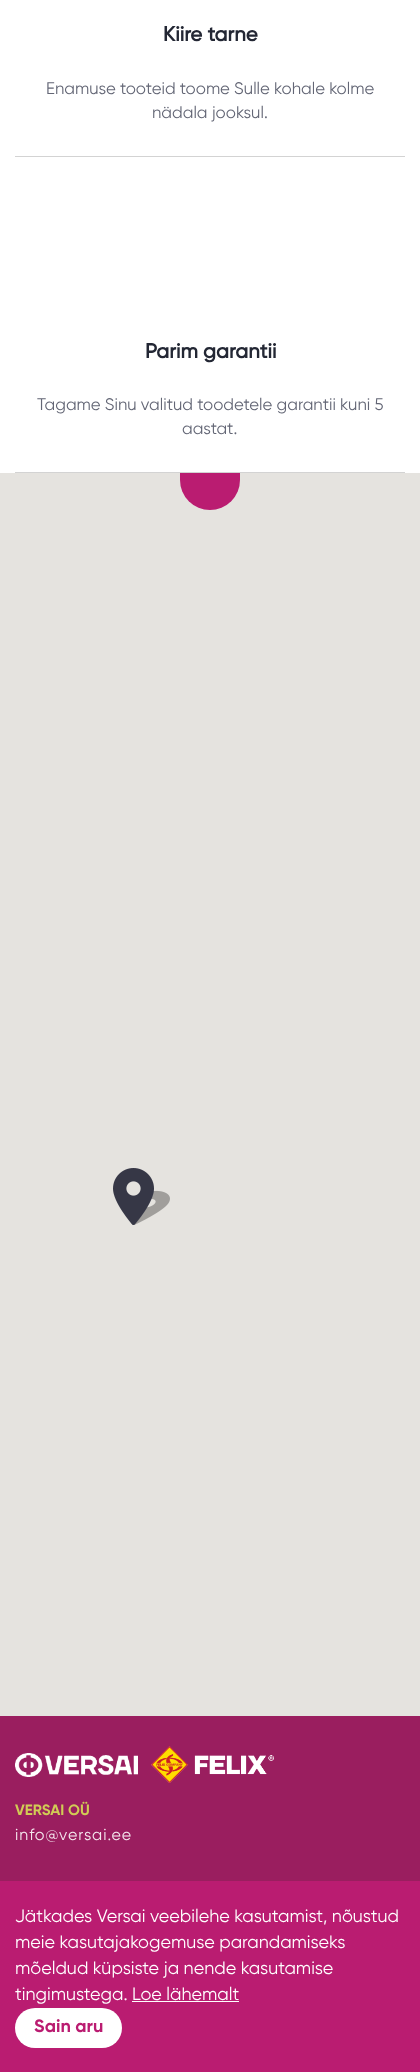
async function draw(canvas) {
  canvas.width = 420;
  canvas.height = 2072;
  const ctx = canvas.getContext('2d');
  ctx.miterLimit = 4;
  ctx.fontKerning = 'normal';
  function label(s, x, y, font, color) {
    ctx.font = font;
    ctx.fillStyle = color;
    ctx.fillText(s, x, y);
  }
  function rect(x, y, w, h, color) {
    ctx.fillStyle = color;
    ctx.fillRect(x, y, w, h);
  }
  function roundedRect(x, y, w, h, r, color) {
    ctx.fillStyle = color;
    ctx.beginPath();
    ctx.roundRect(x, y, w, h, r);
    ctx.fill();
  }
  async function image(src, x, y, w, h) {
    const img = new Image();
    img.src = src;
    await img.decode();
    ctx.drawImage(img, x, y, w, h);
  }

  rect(0, 0, 420, 2072, '#fff');
  rect(15, 156, 390, 1, '#d3d3d3');
  label('Kiire tarne', 163, 41, 'bold 20.5px Gilroy', '#232734');
  label('Enamuse tooteid toome Sulle kohale kolme', 46, 94, '16.8px Gilroy', '#636675');
  label('nädala jooksul.', 152, 118, '16.8px Gilroy', '#636675');
  rect(15, 472, 390, 1, '#d3d3d3');
  label('Parim garantii', 145, 358, 'bold 20.5px Gilroy', '#232734');
  label('Tagame Sinu valitud toodetele garantii kuni 5', 37, 410, '16.8px Gilroy', '#636675');
  label('aastat.', 182, 434, '16.8px Gilroy', '#636675');
  rect(0, 473, 420, 1243, '#e5e3df');
  await image('assets/img1.png', 113, 1168, 57, 57);
  ctx.fillStyle = '#ba1c71';
  ctx.beginPath();
  ctx.roundRect(180, 473, 60, 37, [0, 0, 30, 30]);
  ctx.fill();
  rect(0, 1716, 420, 165, '#9a1e5f');
  await image('assets/img2.png', 15, 1753, 123, 24);
  await image('assets/img3.png', 151, 1746, 123, 37);
  label('VERSAI OÜ', 15, 1815, 'bold 15px "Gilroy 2"', '#d1cb55');
  ctx.letterSpacing = '1px';
  label('info@versai.ee', 15, 1840, '16px Gilroy', '#f5e9ef');
  rect(0, 1881, 420, 191, '#ba1c71');
  ctx.letterSpacing = '0px';
  label('Jätkades Versai veebilehe kasutamist, nõustud', 15, 1922, '18px Gilroy', '#fff');
  label('meie kasutajakogemuse parandamiseks', 15, 1948, '18px Gilroy', '#fff');
  label('mõeldud küpsiste ja nende kasutamise', 15, 1974, '18px Gilroy', '#fff');
  label('tingimustega. Loe lähemalt', 15, 2000, '18px Gilroy', '#fff');
  rect(132, 2001, 107, 1, '#fff');
  roundedRect(15, 2008, 107, 40, 20, '#fff');
  label('Sain aru', 34, 2032, 'bold 18px "Gilroy 2"', '#ba1c71');
}

draw(document.querySelector('canvas'));
